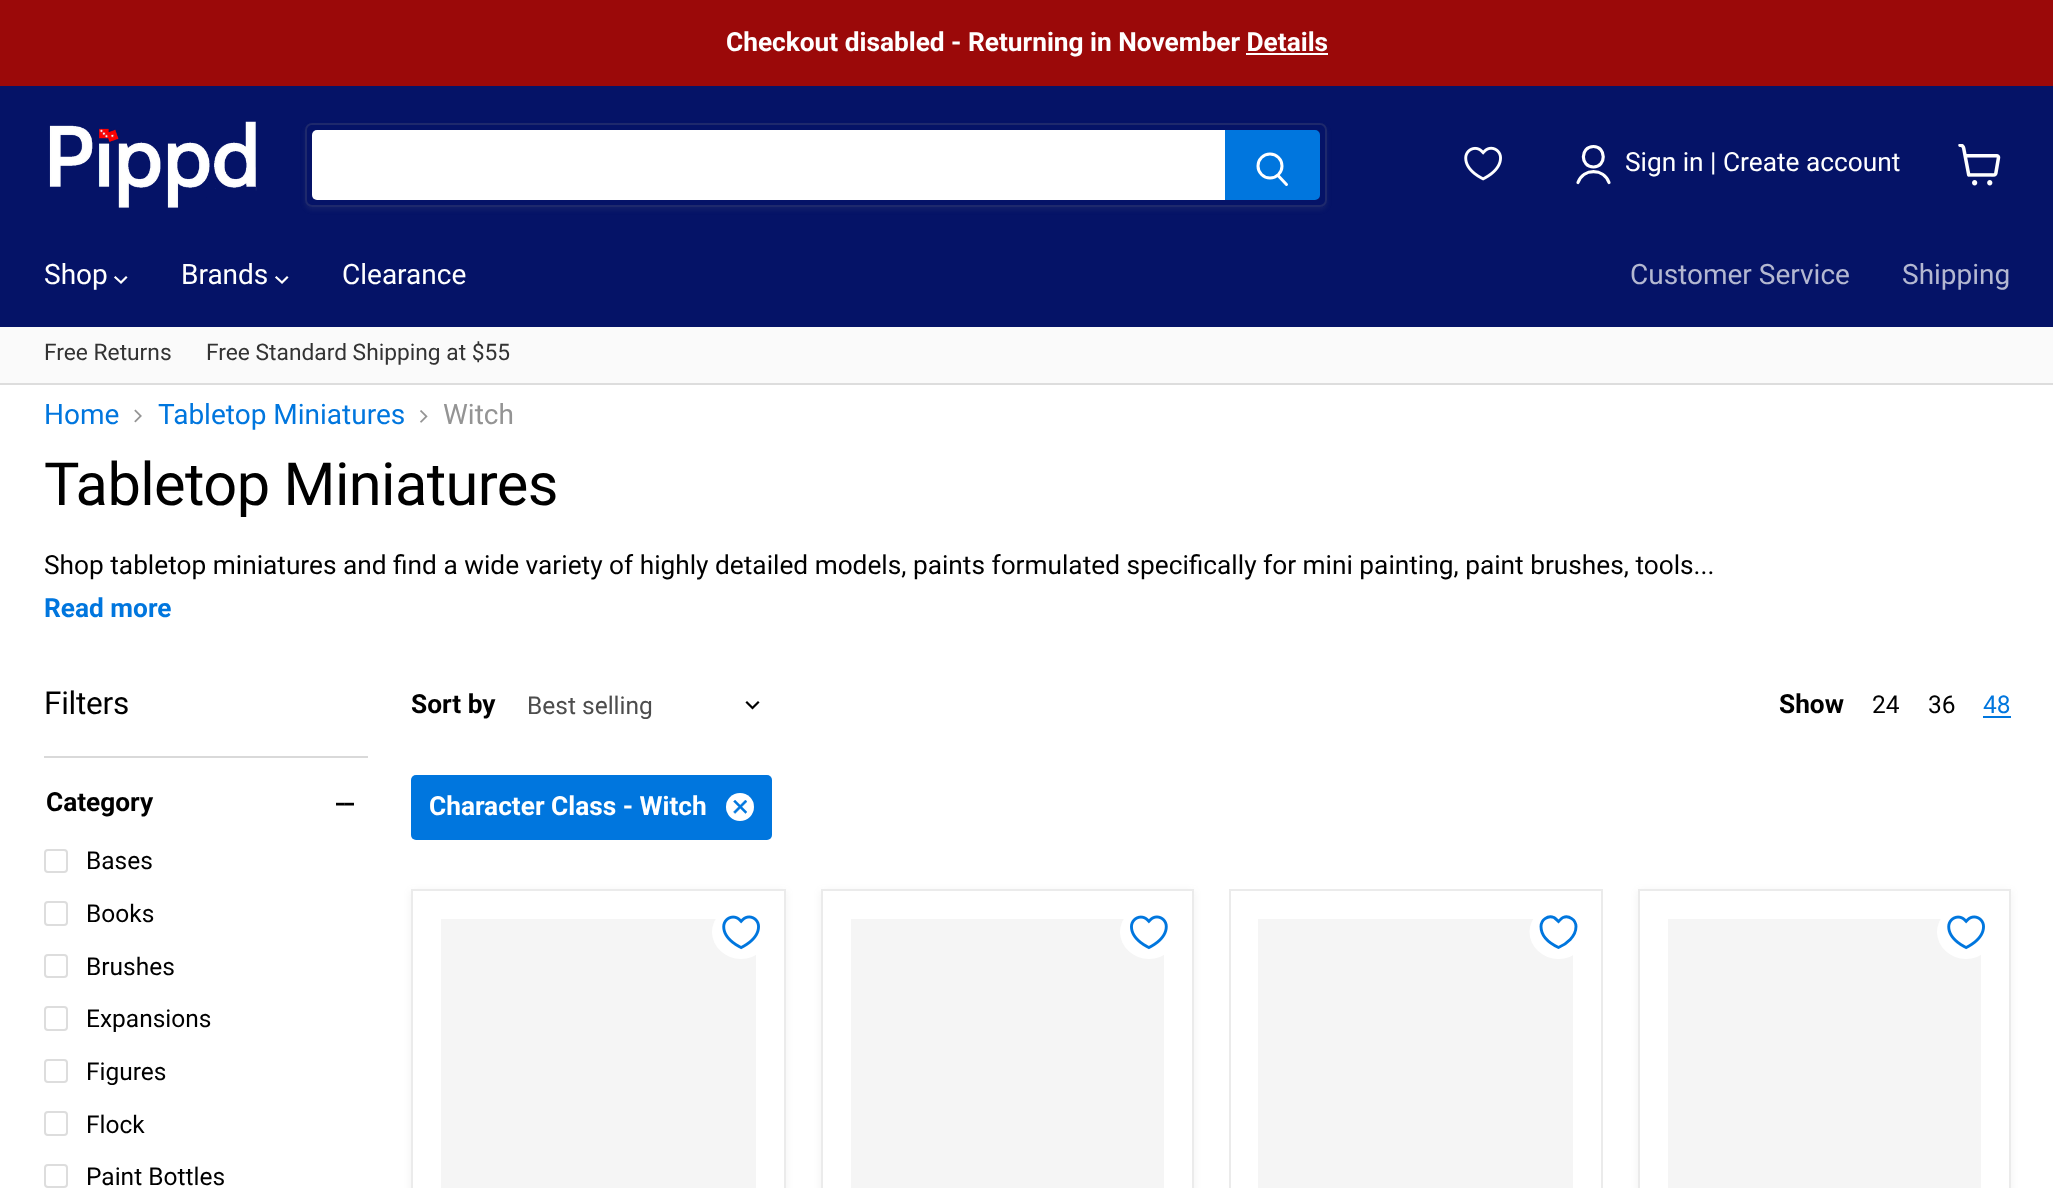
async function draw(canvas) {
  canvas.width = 2053;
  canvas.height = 1188;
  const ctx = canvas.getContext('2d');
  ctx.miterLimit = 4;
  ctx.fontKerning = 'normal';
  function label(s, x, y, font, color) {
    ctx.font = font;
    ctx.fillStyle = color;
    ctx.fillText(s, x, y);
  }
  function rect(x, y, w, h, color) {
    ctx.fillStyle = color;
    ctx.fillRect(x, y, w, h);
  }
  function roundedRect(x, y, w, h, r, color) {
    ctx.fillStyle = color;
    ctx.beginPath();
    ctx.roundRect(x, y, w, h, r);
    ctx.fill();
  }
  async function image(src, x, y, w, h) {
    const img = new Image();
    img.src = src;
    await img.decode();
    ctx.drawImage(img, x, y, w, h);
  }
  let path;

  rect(0, 0, 2053, 1188, '#fff');
  rect(0, 0, 2053, 86, '#9b0909');
  label('Checkout disabled - Returning in November Details', 726, 51, 'bold 26.25px Roboto', '#fff');
  rect(1246, 53, 82, 2, '#fff');
  rect(0, 86, 2053, 241, '#051367');
  await image('assets/img1.png', 49, 121, 208, 87);
  ctx.save();
  path = new Path2D('M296 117H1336V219H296ZM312 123H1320C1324 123 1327 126 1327 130V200C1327 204 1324 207 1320 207H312C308 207 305 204 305 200V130C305 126 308 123 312 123Z');
  ctx.clip(path, 'evenodd');
  ctx.fillStyle = '#8080801c';
  ctx.filter = 'blur(2.5px)';
  ctx.beginPath();
  ctx.roundRect(305, 126, 1022, 84, 7);
  ctx.fill();
  ctx.filter = 'none';
  ctx.restore();
  ctx.beginPath();
  ctx.roundRect(306, 124, 1020, 82, 6);
  ctx.strokeStyle = '#80808033';
  ctx.lineWidth = 2;
  ctx.stroke();
  ctx.fillStyle = '#fff';
  ctx.beginPath();
  ctx.roundRect(312, 130, 913, 70, [5, 0, 0, 5]);
  ctx.fill();
  ctx.fillStyle = '#0076de';
  ctx.beginPath();
  ctx.roundRect(1226, 131, 93, 68, [0, 4, 4, 0]);
  ctx.fill();
  ctx.strokeStyle = '#0076de';
  ctx.stroke();
  path = new Path2D('M1286.5 184.5L1278.5 176');
  ctx.strokeStyle = '#fff';
  ctx.lineWidth = 3;
  ctx.lineCap = 'round';
  ctx.stroke(path);
  ctx.beginPath();
  ctx.arc(1270, 166, 12, 0, 2 * Math.PI);
  ctx.stroke();
  await image('assets/img2.png', 1464, 146, 38, 35);
  path = new Path2D('M1593.5 167C1606.5 167 1606.5 146.5 1593.5 146.5C1580 146.5 1580 167 1593.5 167ZM1609 182.5C1603.5 168 1583.5 168 1578 182.5');
  ctx.lineWidth = 3.2;
  ctx.lineJoin = 'round';
  ctx.stroke(path);
  label('Sign in | Create account', 1625, 171, '26.25px Roboto', '#fff');
  await image('assets/img3.png', 1958, 144, 43, 42);
  label('Shop', 44, 284, '28px Roboto', '#fff');
  path = new Path2D('M121 282.5L126 277.5M121 282.5L115.5 277.5');
  ctx.lineWidth = 2.2;
  ctx.lineCap = 'square';
  ctx.lineJoin = 'miter';
  ctx.stroke(path);
  label('Brands', 181, 284, '28px Roboto', '#fff');
  path = new Path2D('M282 282.5L287 277.5M282 282.5L276.5 277.5');
  ctx.stroke(path);
  label('Clearance', 342, 284, '28px Roboto', '#fff');
  label('Customer Service', 1630, 284, '28px Roboto', '#b4b8d1');
  label('Shipping', 1902, 284, '28px Roboto', '#b4b8d1');
  rect(0, 327, 2053, 56, '#fafafa');
  rect(0, 383, 2053, 2, '#ddd');
  label('Free Returns', 44, 360, '22.75px Roboto', '#333');
  label('Free Standard Shipping at $55', 206, 360, '22.75px Roboto', '#333');
  label('Home', 44, 424, '28px Roboto', '#0076de');
  await image('assets/img4.png', 134, 409, 8, 14);
  label('Tabletop Miniatures', 158, 424, '28px Roboto', '#0076de');
  await image('assets/img5.png', 420, 410, 8, 13);
  label('Witch', 443, 424, '28px Roboto', '#949494');
  ctx.letterSpacing = '-0.6px';
  label('Tabletop Miniatures', 44, 505, '59.5px Roboto', '#000');
  ctx.letterSpacing = '0px';
  label('Shop tabletop miniatures and find a wide variety of highly detailed models, paints formulated specifically for mini painting, paint brushes, tools...', 44, 574, '26.25px Roboto', '#000');
  label('Read more', 44, 617, 'bold 26.25px Roboto', '#0076de');
  ctx.letterSpacing = '-0.25px';
  label('Filters', 44, 714, '31.5px Roboto', '#000');
  rect(44, 756, 324, 2, '#d9d9d9');
  ctx.letterSpacing = '0px';
  label('Category', 46, 811, 'bold 26.25px Roboto', '#000');
  await image('assets/img6.png', 336, 802, 18, 4);
  ctx.beginPath();
  ctx.roundRect(45, 850, 22, 22, 3);
  ctx.strokeStyle = '#ddd';
  ctx.lineWidth = 2;
  ctx.stroke();
  label('Bases', 86, 869, '24.5px Roboto', '#000');
  ctx.beginPath();
  ctx.roundRect(45, 902, 22, 23, 3);
  ctx.stroke();
  label('Books', 86, 922, '24.5px Roboto', '#000');
  ctx.beginPath();
  ctx.roundRect(45, 955, 22, 22, 3);
  ctx.stroke();
  label('Brushes', 86, 975, '24.5px Roboto', '#000');
  ctx.beginPath();
  ctx.roundRect(45, 1007, 22, 23, 3);
  ctx.stroke();
  label('Expansions', 86, 1027, '24.5px Roboto', '#000');
  ctx.beginPath();
  ctx.roundRect(45, 1060, 22, 22, 3);
  ctx.stroke();
  label('Figures', 86, 1080, '24.5px Roboto', '#000');
  ctx.beginPath();
  ctx.roundRect(45, 1112, 22, 23, 3);
  ctx.stroke();
  label('Flock', 86, 1133, '24.5px Roboto', '#000');
  ctx.beginPath();
  ctx.roundRect(45, 1165, 22, 22, 3);
  ctx.stroke();
  label('Paint Bottles', 86, 1185, '24.5px Roboto', '#000');
  label('Sort by', 411, 713, 'bold 26.25px Roboto', '#000');
  label('Best selling', 527, 714, '24.5px Roboto', '#4d4d4d');
  path = new Path2D('M752.5 708L758 702.5M752.5 708L747 702.5');
  ctx.strokeStyle = '#000';
  ctx.lineWidth = 2.2;
  ctx.stroke(path);
  label('Show', 1779, 713, 'bold 26.25px Roboto', '#000');
  label('24', 1872, 713, '24.5px Roboto', '#000');
  label('36', 1928, 713, '24.5px Roboto', '#000');
  label('48', 1983, 713, '24.5px Roboto', '#0076de');
  rect(1983, 716, 28, 2, '#0076de');
  roundedRect(411, 775, 361, 65, 5, '#0076de');
  label('Character Class - Witch', 429, 815, 'bold 26.25px Roboto', '#fff');
  ctx.beginPath();
  ctx.arc(740, 807, 14, 0, 2 * Math.PI);
  ctx.fill();
  await image('assets/img7.png', 733, 800, 14, 14);
  ctx.fillStyle = '#8080801c';
  ctx.filter = 'blur(3.5px)';
  ctx.beginPath();
  ctx.rect(411, 891, 375, 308);
  ctx.fill();
  ctx.filter = 'none';
  ctx.fillStyle = '#fff';
  ctx.beginPath();
  ctx.rect(412, 890, 373, 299);
  ctx.fill();
  ctx.strokeStyle = '#ebebeb';
  ctx.lineWidth = 2;
  ctx.stroke();
  rect(441, 919, 315, 269, '#f5f5f5');
  ctx.fillStyle = '#fff';
  ctx.beginPath();
  ctx.ellipse(741, 932, 29, 27, 0, 0, 2 * Math.PI);
  ctx.fill();
  await image('assets/img8.png', 722, 915, 38, 35);
  ctx.fillStyle = '#8080801c';
  ctx.filter = 'blur(3.5px)';
  ctx.beginPath();
  ctx.rect(821, 891, 373, 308);
  ctx.fill();
  ctx.filter = 'none';
  ctx.fillStyle = '#fff';
  ctx.beginPath();
  ctx.rect(822, 890, 371, 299);
  ctx.fill();
  ctx.stroke();
  rect(851, 919, 313, 269, '#f5f5f5');
  ctx.fillStyle = '#fff';
  ctx.beginPath();
  ctx.ellipse(1149, 932, 29, 27, 0, 0, 2 * Math.PI);
  ctx.fill();
  await image('assets/img9.png', 1130, 915, 38, 35);
  ctx.strokeRect(1230, 890, 372, 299);
  rect(1258, 919, 315, 269, '#f5f5f5');
  ctx.fillStyle = '#fff';
  ctx.beginPath();
  ctx.ellipse(1558.5, 932, 29, 27, 0, 0, 2 * Math.PI);
  ctx.fill();
  path = new Path2D('M1558.5 947.5C1550 943.5 1541 936.5 1541 926.5C1541 920 1547.5 915 1554 917.5C1555.5 918.5 1557 920 1558.5 921.5C1560 920 1561 918.5 1563 917.5C1569 915 1576 920 1576 926.5C1576 936.5 1566.5 944 1558.5 947.5Z');
  ctx.strokeStyle = '#0076de';
  ctx.lineWidth = 2.9;
  ctx.lineCap = 'butt';
  ctx.stroke(path);
  ctx.fillStyle = '#8080801c';
  ctx.filter = 'blur(3.5px)';
  ctx.beginPath();
  ctx.rect(1638, 891, 373, 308);
  ctx.fill();
  ctx.filter = 'none';
  ctx.fillStyle = '#fff';
  ctx.beginPath();
  ctx.rect(1639, 890, 371, 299);
  ctx.fill();
  ctx.strokeStyle = '#ebebeb';
  ctx.lineWidth = 2;
  ctx.stroke();
  rect(1668, 919, 313, 269, '#f5f5f5');
  ctx.fillStyle = '#fff';
  ctx.beginPath();
  ctx.ellipse(1966, 932, 29, 27, 0, 0, 2 * Math.PI);
  ctx.fill();
  await image('assets/img8.png', 1947, 915, 38, 35);
}

draw(document.querySelector('canvas'));
